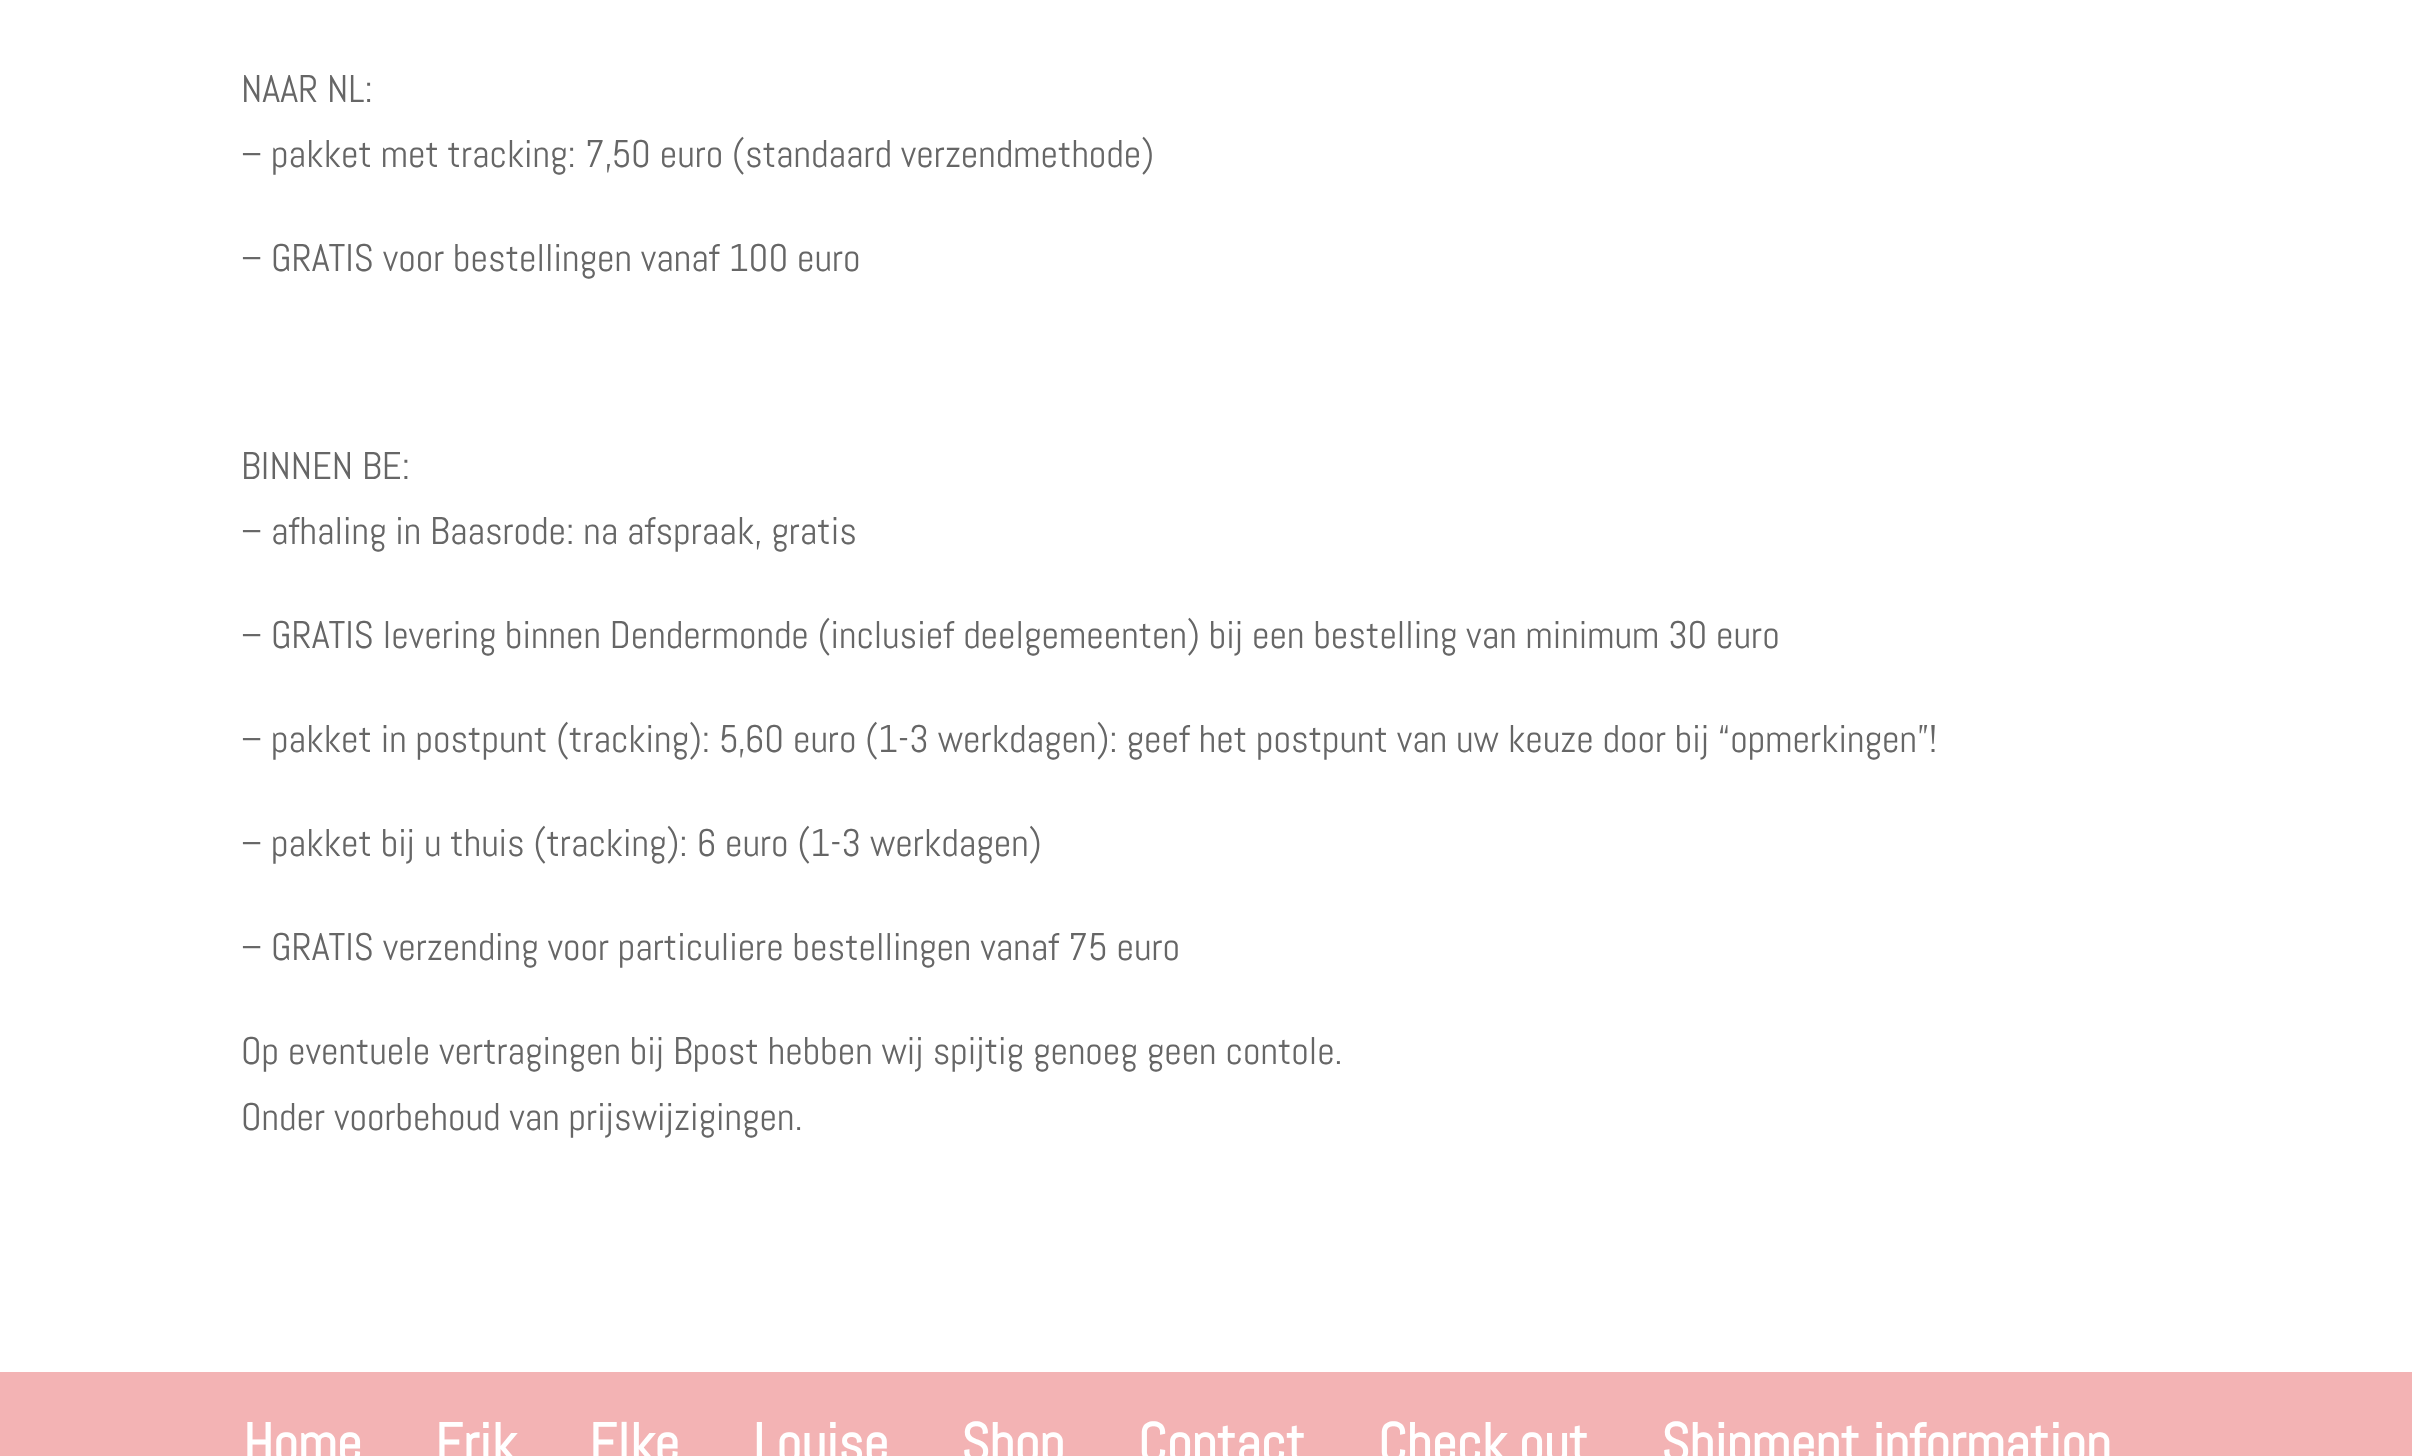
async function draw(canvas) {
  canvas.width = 2412;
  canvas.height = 1456;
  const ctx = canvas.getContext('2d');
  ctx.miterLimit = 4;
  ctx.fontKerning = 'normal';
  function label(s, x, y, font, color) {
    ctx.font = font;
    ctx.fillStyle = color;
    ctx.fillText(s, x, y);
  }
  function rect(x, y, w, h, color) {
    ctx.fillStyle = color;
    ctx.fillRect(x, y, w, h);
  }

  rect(0, 0, 2412, 1456, '#fff');
  label('NAAR NL:', 241, 102, '38.5px Abel', '#666');
  label('– pakket met tracking: 7,50 euro (standaard verzendmethode)', 241, 167, '38.5px Abel', '#666');
  label('– GRATIS voor bestellingen vanaf 100 euro', 241, 271, '38.5px Abel', '#666');
  label('BINNEN BE:', 241, 479, '38.5px Abel', '#666');
  label('– afhaling in Baasrode: na afspraak, gratis', 241, 544, '38.5px Abel', '#666');
  label('– GRATIS levering binnen Dendermonde (inclusief deelgemeenten) bij een bestelling van minimum 30 euro', 241, 648, '38.5px Abel', '#666');
  label('– pakket in postpunt (tracking): 5,60 euro (1-3 werkdagen): geef het postpunt van uw keuze door bij “opmerkingen”!', 241, 752, '38.5px Abel', '#666');
  label('– pakket bij u thuis (tracking): 6 euro (1-3 werkdagen)', 241, 856, '38.5px Abel', '#666');
  label('– GRATIS verzending voor particuliere bestellingen vanaf 75 euro', 241, 960, '38.5px Abel', '#666');
  label('Op eventuele vertragingen bij Bpost hebben wij spijtig genoeg geen contole.', 241, 1064, '38.5px Abel', '#666');
  label('Onder voorbehoud van prijswijzigingen.', 241, 1130, '38.5px Abel', '#666');
  rect(0, 1372, 2412, 84, '#f3b3b4');
  label('Home', 243, 1462, 'bold 55px Abel', '#fff');
  label('Erik', 435, 1462, 'bold 55px Abel', '#fff');
  label('Elke', 589, 1462, 'bold 55px Abel', '#fff');
  label('Louise', 753, 1462, 'bold 55px Abel', '#fff');
  label('Shop', 961, 1462, 'bold 55px Abel', '#fff');
  label('Contact', 1138, 1462, 'bold 55px Abel', '#fff');
  label('Check out', 1378, 1462, 'bold 55px Abel', '#fff');
  label('Shipment information', 1661, 1462, 'bold 55px Abel', '#fff');
}

draw(document.querySelector('canvas'));
